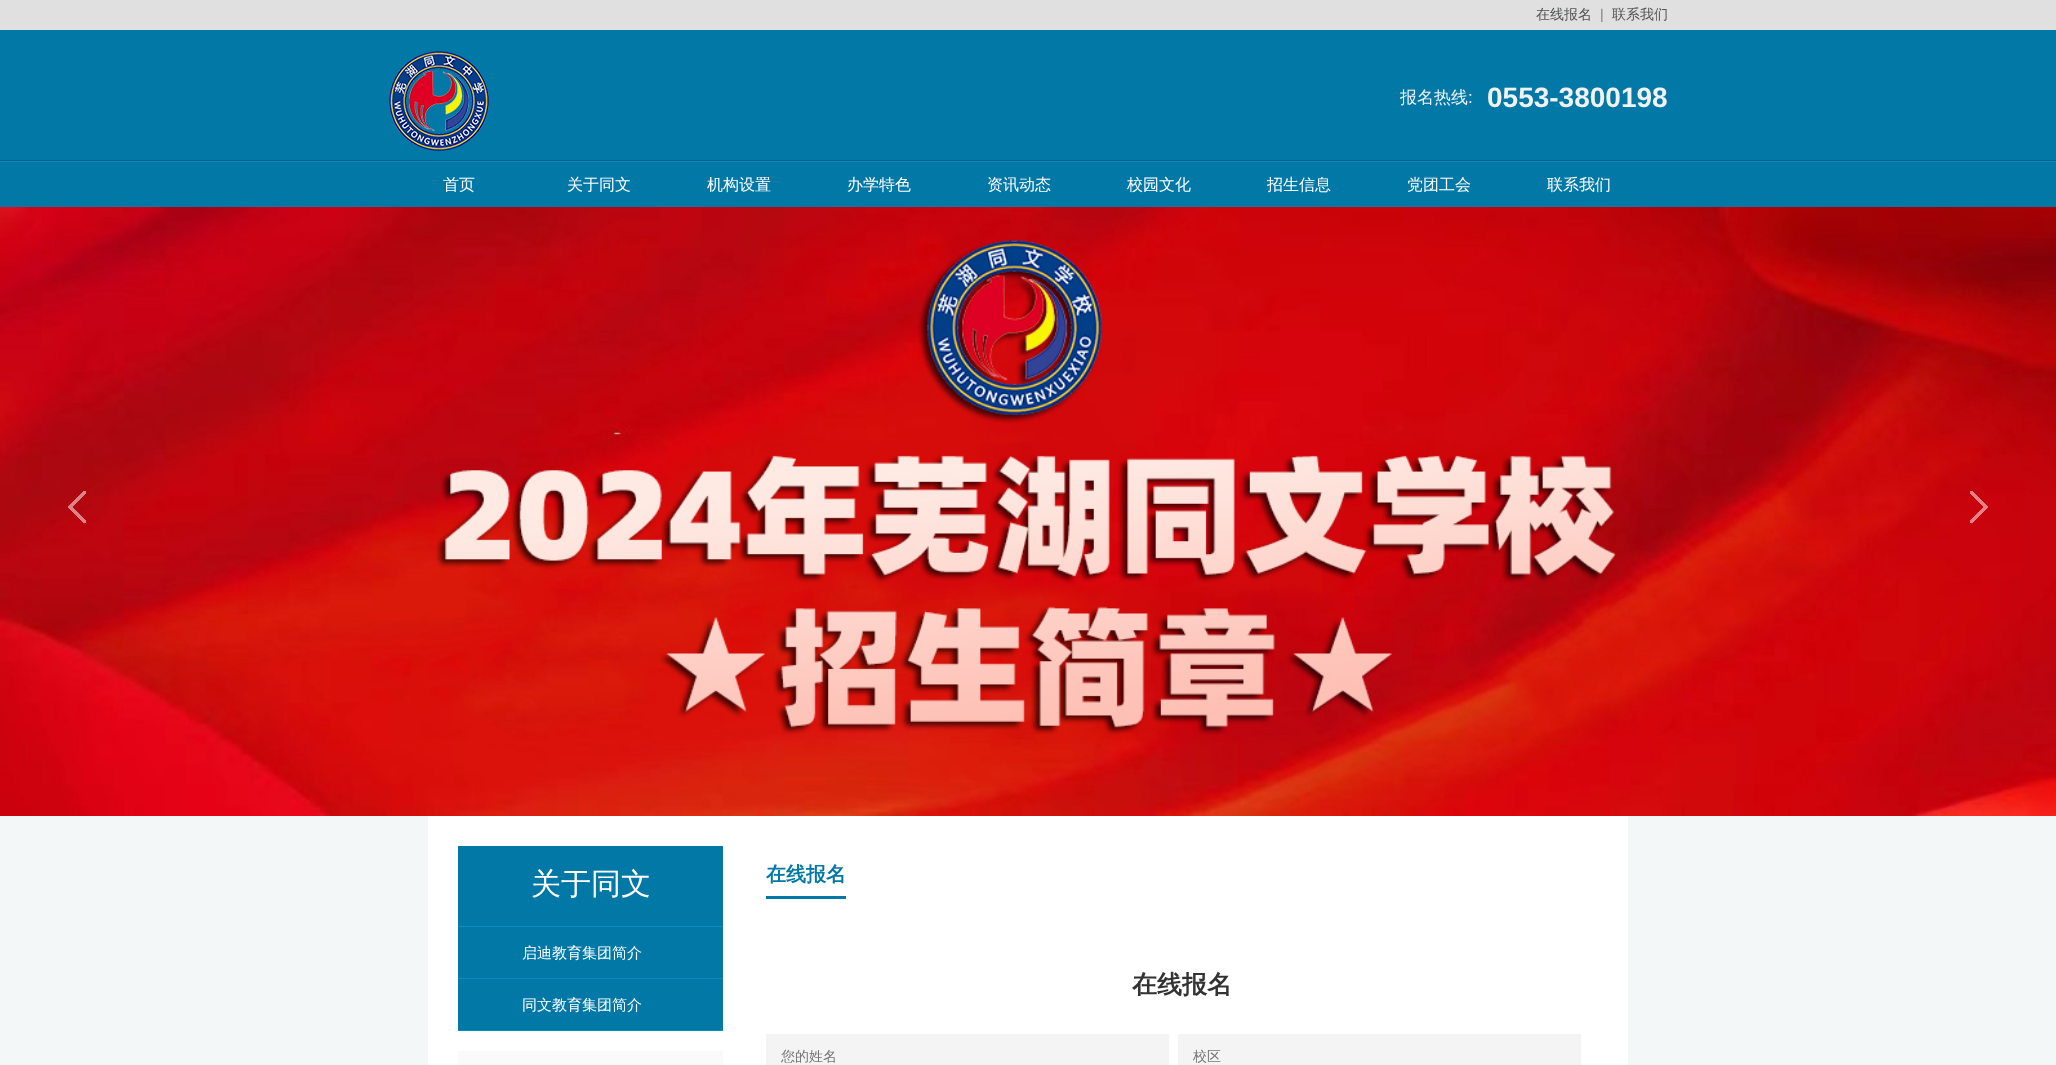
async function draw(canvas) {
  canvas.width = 2056;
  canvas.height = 1065;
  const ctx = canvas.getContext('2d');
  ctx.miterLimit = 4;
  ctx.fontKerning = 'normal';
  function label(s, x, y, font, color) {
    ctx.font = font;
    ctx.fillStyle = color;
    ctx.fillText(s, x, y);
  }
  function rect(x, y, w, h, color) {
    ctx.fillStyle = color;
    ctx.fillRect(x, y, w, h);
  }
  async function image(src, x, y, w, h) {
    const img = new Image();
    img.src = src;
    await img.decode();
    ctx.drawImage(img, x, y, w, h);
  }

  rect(0, 0, 2056, 1065, '#e0e0e0');
  label('在线报名', 1536, 19, '500 14px WenQuanYi Zen Hei', '#525353');
  label('|', 1600, 19, '14px Liberation Sans', '#808080');
  label('联系我们', 1612, 19, '500 14px WenQuanYi Zen Hei', '#525353');
  rect(0, 30, 2056, 130, '#0278a6');
  rect(0, 160, 2056, 1, '#035e82');
  await image('assets/img1.png', 389, 51, 100, 100);
  label('报名热线', 1400, 103, '500 17px WenQuanYi Zen Hei', '#f2f2f2');
  label(':', 1468, 103, '17px Liberation Sans', '#f2f2f2');
  label('0553-3800198', 1487, 107, 'bold 28px Liberation Sans', '#f2f2f2');
  rect(0, 162, 2056, 45, '#0278a6');
  rect(0, 161, 2056, 1, '#088cc0');
  label('首页', 443, 190, '500 16px WenQuanYi Zen Hei', '#fff');
  label('关于同文', 567, 190, '500 16px WenQuanYi Zen Hei', '#fff');
  label('机构设置', 707, 190, '500 16px WenQuanYi Zen Hei', '#fff');
  label('办学特色', 847, 190, '500 16px WenQuanYi Zen Hei', '#fff');
  label('资讯动态', 987, 190, '500 16px WenQuanYi Zen Hei', '#fff');
  label('校园文化', 1127, 190, '500 16px WenQuanYi Zen Hei', '#fff');
  label('招生信息', 1267, 190, '500 16px WenQuanYi Zen Hei', '#fff');
  label('党团工会', 1407, 190, '500 16px WenQuanYi Zen Hei', '#fff');
  label('联系我们', 1547, 190, '500 16px WenQuanYi Zen Hei', '#fff');
  await image('assets/img2.png', 0, 207, 2056, 609);
  await image('assets/img3.png', 68, 491, 18, 32);
  await image('assets/img4.png', 1970, 491, 18, 32);
  rect(0, 816, 2056, 249, '#f4f7f7');
  rect(428, 816, 1200, 249, '#fff');
  rect(458, 846, 265, 80, '#0278a6');
  rect(458, 926, 265, 1, '#088cc0');
  label('关于同文', 531, 894, '500 30px WenQuanYi Zen Hei', '#fff');
  rect(458, 927, 265, 51, '#0278a6');
  rect(458, 978, 265, 1, '#088cc0');
  label('启迪教育集团简介', 522, 958, '500 15px WenQuanYi Zen Hei', '#fff');
  rect(458, 979, 265, 51, '#0278a6');
  rect(458, 1030, 265, 1, '#088cc0');
  label('同文教育集团简介', 522, 1010, '500 15px WenQuanYi Zen Hei', '#fff');
  rect(458, 1051, 265, 14, '#fafafa');
  rect(766, 896, 80, 3, '#0278a6');
  label('在线报名', 766, 881, 'bold 20px WenQuanYi Zen Hei', '#0278a6');
  label('在线报名', 1132, 993, 'bold 25px WenQuanYi Zen Hei', '#333');
  rect(766, 1034, 403, 31, '#f4f4f4');
  label('您的姓名', 781, 1061, '500 14px WenQuanYi Zen Hei', '#757575');
  rect(1178, 1034, 403, 31, '#f4f4f4');
  label('校区', 1193, 1061, '500 14px WenQuanYi Zen Hei', '#757575');
}

draw(document.querySelector('canvas'));
